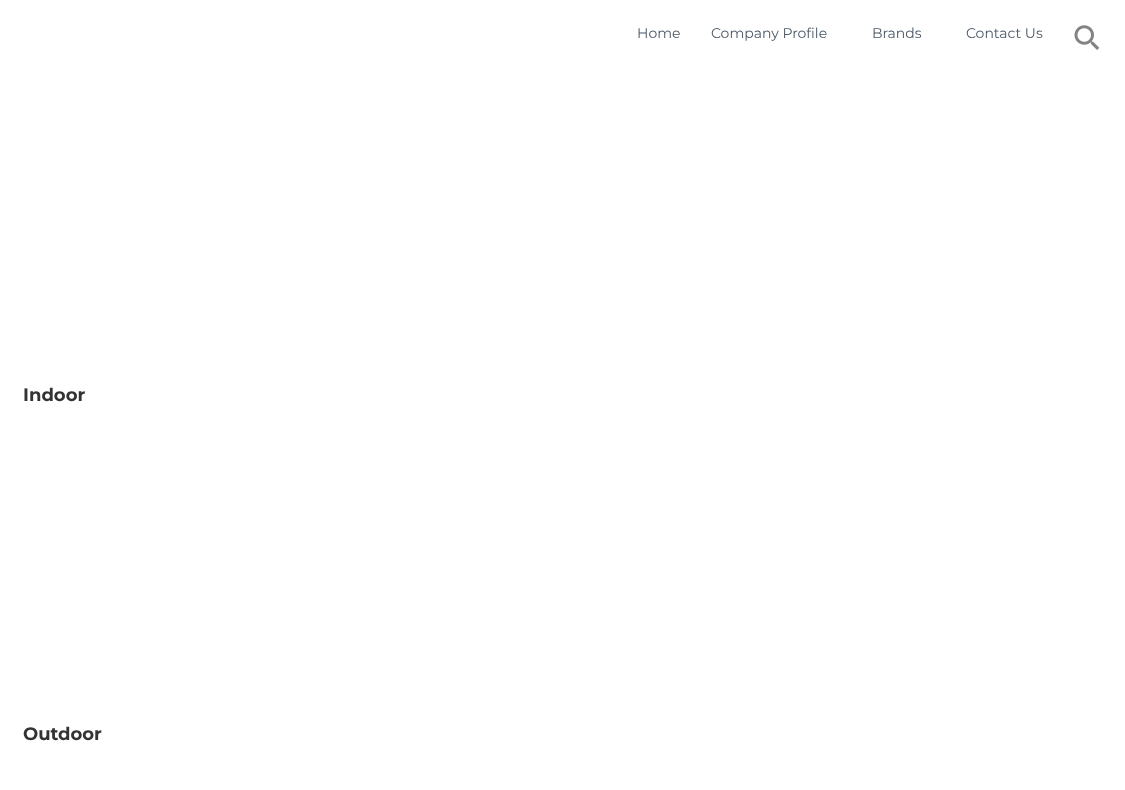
async function draw(canvas) {
  canvas.width = 1125;
  canvas.height = 790;
  const ctx = canvas.getContext('2d');
  ctx.miterLimit = 4;
  ctx.fontKerning = 'normal';
  function label(s, x, y, font, color) {
    ctx.font = font;
    ctx.fillStyle = color;
    ctx.fillText(s, x, y);
  }
  function rect(x, y, w, h, color) {
    ctx.fillStyle = color;
    ctx.fillRect(x, y, w, h);
  }
  async function image(src, x, y, w, h) {
    const img = new Image();
    img.src = src;
    await img.decode();
    ctx.drawImage(img, x, y, w, h);
  }

  rect(0, 0, 1125, 790, '#fff');
  label('Home', 637, 38, '14px Montserrat', '#4c5867');
  label('Company Profile', 711, 38, '14px Montserrat', '#4c5867');
  label('Brands', 872, 38, '14px Montserrat', '#4c5867');
  label('Contact Us', 966, 38, '14px Montserrat', '#4c5867');
  await image('assets/img1.png', 1074, 25, 26, 25);
  label('Indoor', 23, 401, 'bold 18px Montserrat', '#333');
  label('Outdoor', 23, 740, 'bold 18px Montserrat', '#333');
}

draw(document.querySelector('canvas'));
